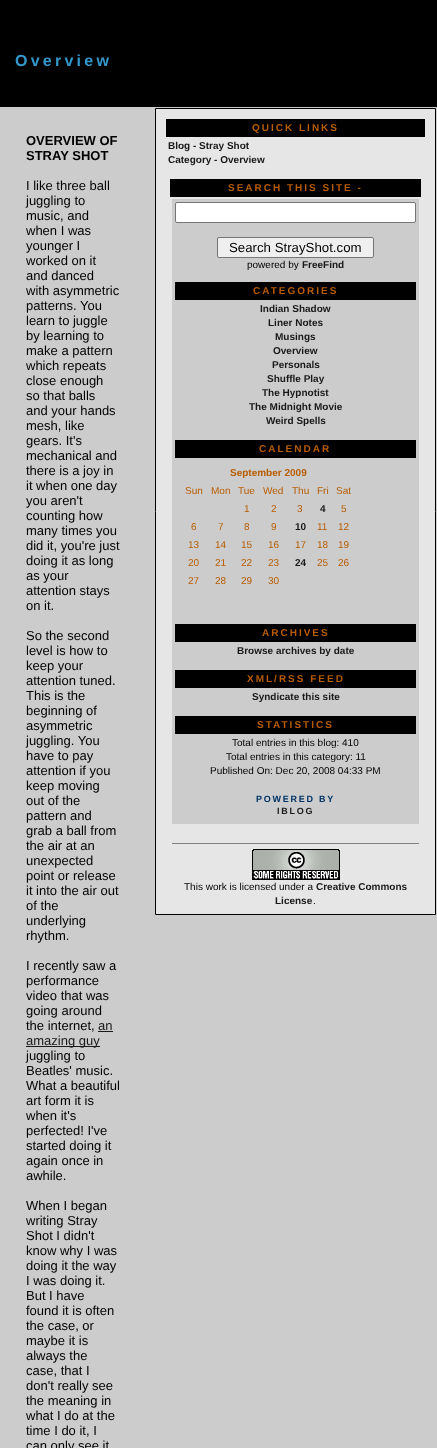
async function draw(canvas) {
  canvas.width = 437;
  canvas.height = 1448;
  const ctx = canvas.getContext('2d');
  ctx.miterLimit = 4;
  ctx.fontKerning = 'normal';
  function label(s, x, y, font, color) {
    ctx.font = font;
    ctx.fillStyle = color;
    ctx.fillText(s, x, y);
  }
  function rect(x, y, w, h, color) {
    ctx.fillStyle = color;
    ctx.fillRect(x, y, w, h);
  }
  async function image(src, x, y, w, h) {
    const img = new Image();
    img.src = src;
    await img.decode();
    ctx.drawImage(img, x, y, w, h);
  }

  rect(0, 0, 437, 1448, '#ccc');
  rect(0, 0, 437, 107, '#000');
  ctx.letterSpacing = '3.25px';
  label('Overview', 15, 66, 'bold 16px Liberation Sans', '#39c');
  ctx.letterSpacing = '0px';
  label('OVERVIEW OF', 26, 145, 'bold 13px Liberation Sans', '#000');
  label('STRAY SHOT', 26, 160, 'bold 13px Liberation Sans', '#000');
  label('I like three ball', 26, 190, '13px Liberation Sans', '#000');
  label('juggling to', 26, 205, '13px Liberation Sans', '#000');
  label('music, and', 26, 220, '13px Liberation Sans', '#000');
  label('when I was', 26, 235, '13px Liberation Sans', '#000');
  label('younger I', 26, 250, '13px Liberation Sans', '#000');
  label('worked on it', 26, 265, '13px Liberation Sans', '#000');
  label('and danced', 26, 280, '13px Liberation Sans', '#000');
  label('with asymmetric', 26, 295, '13px Liberation Sans', '#000');
  label('patterns. You', 26, 310, '13px Liberation Sans', '#000');
  label('learn to juggle', 26, 325, '13px Liberation Sans', '#000');
  label('by learning to', 26, 340, '13px Liberation Sans', '#000');
  label('make a pattern', 26, 355, '13px Liberation Sans', '#000');
  label('which repeats', 26, 370, '13px Liberation Sans', '#000');
  label('close enough', 26, 385, '13px Liberation Sans', '#000');
  label('so that balls', 26, 400, '13px Liberation Sans', '#000');
  label('and your hands', 26, 415, '13px Liberation Sans', '#000');
  label('mesh, like', 26, 430, '13px Liberation Sans', '#000');
  label('gears. It\'s', 26, 445, '13px Liberation Sans', '#000');
  label('mechanical and', 26, 460, '13px Liberation Sans', '#000');
  label('there is a joy in', 26, 475, '13px Liberation Sans', '#000');
  label('it when one day', 26, 490, '13px Liberation Sans', '#000');
  label('you aren\'t', 26, 505, '13px Liberation Sans', '#000');
  label('counting how', 26, 520, '13px Liberation Sans', '#000');
  label('many times you', 26, 535, '13px Liberation Sans', '#000');
  label('did it, you\'re just', 26, 550, '13px Liberation Sans', '#000');
  label('doing it as long', 26, 565, '13px Liberation Sans', '#000');
  label('as your', 26, 580, '13px Liberation Sans', '#000');
  label('attention stays', 26, 595, '13px Liberation Sans', '#000');
  label('on it.', 26, 610, '13px Liberation Sans', '#000');
  label('So the second', 26, 640, '13px Liberation Sans', '#000');
  label('level is how to', 26, 655, '13px Liberation Sans', '#000');
  label('keep your', 26, 670, '13px Liberation Sans', '#000');
  label('attention tuned.', 26, 685, '13px Liberation Sans', '#000');
  label('This is the', 26, 700, '13px Liberation Sans', '#000');
  label('beginning of', 26, 715, '13px Liberation Sans', '#000');
  label('asymmetric', 26, 730, '13px Liberation Sans', '#000');
  label('juggling. You', 26, 745, '13px Liberation Sans', '#000');
  label('have to pay', 26, 760, '13px Liberation Sans', '#000');
  label('attention if you', 26, 775, '13px Liberation Sans', '#000');
  label('keep moving', 26, 790, '13px Liberation Sans', '#000');
  label('out of the', 26, 805, '13px Liberation Sans', '#000');
  label('pattern and', 26, 820, '13px Liberation Sans', '#000');
  label('grab a ball from', 26, 835, '13px Liberation Sans', '#000');
  label('the air at an', 26, 850, '13px Liberation Sans', '#000');
  label('unexpected', 26, 865, '13px Liberation Sans', '#000');
  label('point or release', 26, 880, '13px Liberation Sans', '#000');
  label('it into the air out', 26, 895, '13px Liberation Sans', '#000');
  label('of the', 26, 910, '13px Liberation Sans', '#000');
  label('underlying', 26, 925, '13px Liberation Sans', '#000');
  label('rhythm.', 26, 940, '13px Liberation Sans', '#000');
  label('I recently saw a', 26, 970, '13px Liberation Sans', '#000');
  label('performance', 26, 985, '13px Liberation Sans', '#000');
  label('video that was', 26, 1000, '13px Liberation Sans', '#000');
  label('going around', 26, 1015, '13px Liberation Sans', '#000');
  label('the internet,', 26, 1030, '13px Liberation Sans', '#000');
  label('an', 98, 1030, '13px Liberation Sans', '#191919');
  rect(98, 1031, 15, 1, '#191919');
  rect(26, 1046, 74, 1, '#191919');
  label('amazing guy', 26, 1045, '13px Liberation Sans', '#191919');
  label('juggling to', 26, 1060, '13px Liberation Sans', '#000');
  label('Beatles\' music.', 26, 1075, '13px Liberation Sans', '#000');
  label('What a beautiful', 26, 1090, '13px Liberation Sans', '#000');
  label('art form it is', 26, 1105, '13px Liberation Sans', '#000');
  label('when it\'s', 26, 1120, '13px Liberation Sans', '#000');
  label('perfected! I\'ve', 26, 1135, '13px Liberation Sans', '#000');
  label('started doing it', 26, 1150, '13px Liberation Sans', '#000');
  label('again once in', 26, 1165, '13px Liberation Sans', '#000');
  label('awhile.', 26, 1180, '13px Liberation Sans', '#000');
  label('When I began', 26, 1210, '13px Liberation Sans', '#000');
  label('writing Stray', 26, 1225, '13px Liberation Sans', '#000');
  label('Shot I didn\'t', 26, 1240, '13px Liberation Sans', '#000');
  label('know why I was', 26, 1255, '13px Liberation Sans', '#000');
  label('doing it the way', 26, 1270, '13px Liberation Sans', '#000');
  label('I was doing it.', 26, 1285, '13px Liberation Sans', '#000');
  label('But I have', 26, 1300, '13px Liberation Sans', '#000');
  label('found it is often', 26, 1315, '13px Liberation Sans', '#000');
  label('the case, or', 26, 1330, '13px Liberation Sans', '#000');
  label('maybe it is', 26, 1345, '13px Liberation Sans', '#000');
  label('always the', 26, 1360, '13px Liberation Sans', '#000');
  label('case, that I', 26, 1375, '13px Liberation Sans', '#000');
  label('don\'t really see', 26, 1390, '13px Liberation Sans', '#000');
  label('the meaning in', 26, 1405, '13px Liberation Sans', '#000');
  label('what I do at the', 26, 1420, '13px Liberation Sans', '#000');
  label('time I do it, I', 26, 1435, '13px Liberation Sans', '#000');
  label('can only see it', 26, 1450, '13px Liberation Sans', '#000');
  ctx.fillStyle = '#e6e6e6';
  ctx.beginPath();
  ctx.rect(155.5, 108.5, 280, 806);
  ctx.fill();
  ctx.strokeStyle = '#000';
  ctx.stroke();
  rect(166, 119, 259, 18, '#000');
  ctx.letterSpacing = '2px';
  label('QUICK LINKS', 252, 131, 'bold 10px Liberation Sans', '#b85c00');
  ctx.letterSpacing = '0px';
  label('Blog - Stray Shot', 168, 149, 'bold 10px Liberation Sans', '#191919');
  label('Category - Overview', 168, 163, 'bold 10px Liberation Sans', '#191919');
  rect(170, 179, 251, 18, '#000');
  ctx.letterSpacing = '2px';
  label('SEARCH THIS SITE -', 228, 191, 'bold 10px Liberation Sans', '#b85c00');
  rect(172, 199, 247, 625, '#ccc');
  ctx.fillStyle = '#fff';
  ctx.beginPath();
  ctx.roundRect(175.5, 202.5, 240, 20, 1.5);
  ctx.fill();
  ctx.strokeStyle = '#767676';
  ctx.stroke();
  ctx.fillStyle = '#efefef';
  ctx.beginPath();
  ctx.roundRect(217.5, 237.5, 156, 20, 1.5);
  ctx.fill();
  ctx.stroke();
  ctx.letterSpacing = '0px';
  label('Search StrayShot.com', 229, 252, '13.25px Liberation Sans', '#000');
  label('powered by', 247, 268, '10px Liberation Sans', '#000');
  label('FreeFind', 302, 268, 'bold 10px Liberation Sans', '#191919');
  rect(175, 282, 241, 18, '#000');
  ctx.letterSpacing = '2px';
  label('CATEGORIES', 253, 294, 'bold 10px Liberation Sans', '#b85c00');
  ctx.letterSpacing = '0px';
  label('Indian Shadow', 260, 312, 'bold 10px Liberation Sans', '#191919');
  label('Liner Notes', 268, 326, 'bold 10px Liberation Sans', '#191919');
  label('Musings', 275, 340, 'bold 10px Liberation Sans', '#191919');
  label('Overview', 273, 354, 'bold 10px Liberation Sans', '#191919');
  label('Personals', 272, 368, 'bold 10px Liberation Sans', '#191919');
  label('Shuffle Play', 267, 382, 'bold 10px Liberation Sans', '#191919');
  label('The Hypnotist', 262, 396, 'bold 10px Liberation Sans', '#191919');
  label('The Midnight Movie', 249, 410, 'bold 10px Liberation Sans', '#191919');
  label('Weird Spells', 266, 424, 'bold 10px Liberation Sans', '#191919');
  rect(175, 440, 241, 18, '#000');
  ctx.letterSpacing = '2px';
  label('CALENDAR', 259, 452, 'bold 10px Liberation Sans', '#b85c00');
  ctx.letterSpacing = '0px';
  label('September 2009', 230, 476, 'bold 10px Liberation Sans', '#b85c00');
  label('Sun', 185, 494, '10px Liberation Sans', '#b85c00');
  label('Mon', 211, 494, '10px Liberation Sans', '#b85c00');
  label('Tue', 238, 494, '10px Liberation Sans', '#b85c00');
  label('Wed', 263, 494, '10px Liberation Sans', '#b85c00');
  label('Thu', 292, 494, '10px Liberation Sans', '#b85c00');
  label('Fri', 317, 494, '10px Liberation Sans', '#b85c00');
  label('Sat', 336, 494, '10px Liberation Sans', '#b85c00');
  label('1', 244, 512, '10px Liberation Sans', '#b85c00');
  label('2', 271, 512, '10px Liberation Sans', '#b85c00');
  label('3', 297, 512, '10px Liberation Sans', '#b85c00');
  label('4', 320, 512, 'bold 10px Liberation Sans', '#191919');
  label('5', 341, 512, '10px Liberation Sans', '#b85c00');
  label('6', 191, 530, '10px Liberation Sans', '#b85c00');
  label('7', 218, 530, '10px Liberation Sans', '#b85c00');
  label('8', 244, 530, '10px Liberation Sans', '#b85c00');
  label('9', 271, 530, '10px Liberation Sans', '#b85c00');
  label('10', 295, 530, 'bold 10px Liberation Sans', '#191919');
  label('11', 317, 530, '10px Liberation Sans', '#b85c00');
  label('12', 338, 530, '10px Liberation Sans', '#b85c00');
  label('13', 188, 548, '10px Liberation Sans', '#b85c00');
  label('14', 215, 548, '10px Liberation Sans', '#b85c00');
  label('15', 241, 548, '10px Liberation Sans', '#b85c00');
  label('16', 268, 548, '10px Liberation Sans', '#b85c00');
  label('17', 295, 548, '10px Liberation Sans', '#b85c00');
  label('18', 317, 548, '10px Liberation Sans', '#b85c00');
  label('19', 338, 548, '10px Liberation Sans', '#b85c00');
  label('20', 188, 566, '10px Liberation Sans', '#b85c00');
  label('21', 215, 566, '10px Liberation Sans', '#b85c00');
  label('22', 241, 566, '10px Liberation Sans', '#b85c00');
  label('23', 268, 566, '10px Liberation Sans', '#b85c00');
  label('24', 295, 566, 'bold 10px Liberation Sans', '#191919');
  label('25', 317, 566, '10px Liberation Sans', '#b85c00');
  label('26', 338, 566, '10px Liberation Sans', '#b85c00');
  label('27', 188, 584, '10px Liberation Sans', '#b85c00');
  label('28', 215, 584, '10px Liberation Sans', '#b85c00');
  label('29', 241, 584, '10px Liberation Sans', '#b85c00');
  label('30', 268, 584, '10px Liberation Sans', '#b85c00');
  rect(175, 624, 241, 18, '#000');
  ctx.letterSpacing = '2px';
  label('ARCHIVES', 262, 636, 'bold 10px Liberation Sans', '#b85c00');
  ctx.letterSpacing = '0px';
  label('Browse archives by date', 237, 654, 'bold 10px Liberation Sans', '#191919');
  rect(175, 670, 241, 18, '#000');
  ctx.letterSpacing = '2px';
  label('XML/RSS FEED', 247, 682, 'bold 10px Liberation Sans', '#b85c00');
  ctx.letterSpacing = '0px';
  label('Syndicate this site', 252, 700, 'bold 10px Liberation Sans', '#191919');
  rect(175, 716, 241, 18, '#000');
  ctx.letterSpacing = '2px';
  label('STATISTICS', 257, 728, 'bold 10px Liberation Sans', '#b85c00');
  ctx.letterSpacing = '0px';
  label('Total entries in this blog: 410', 232, 746, '10px Liberation Sans', '#000');
  label('Total entries in this category: 11', 226, 760, '10px Liberation Sans', '#000');
  label('Published On: Dec 20, 2008 04:33 PM', 210, 774, '10px Liberation Sans', '#000');
  ctx.letterSpacing = '1.75px';
  label('POWERED BY', 256, 802, 'bold 9px Liberation Sans', '#036');
  label('IBLOG', 277, 814, 'bold 9px Liberation Sans', '#191919');
  rect(172, 843, 247, 1, '#808080');
  await image('assets/img1.png', 252, 849, 88, 31);
  ctx.letterSpacing = '0px';
  label('This work is licensed under a', 184, 890, '10px Liberation Sans', '#000');
  label('Creative Commons', 316, 890, 'bold 10px Liberation Sans', '#191919');
  label('License', 275, 904, 'bold 10px Liberation Sans', '#191919');
  label('.', 313, 904, '10px Liberation Sans', '#000');
}

draw(document.querySelector('canvas'));
